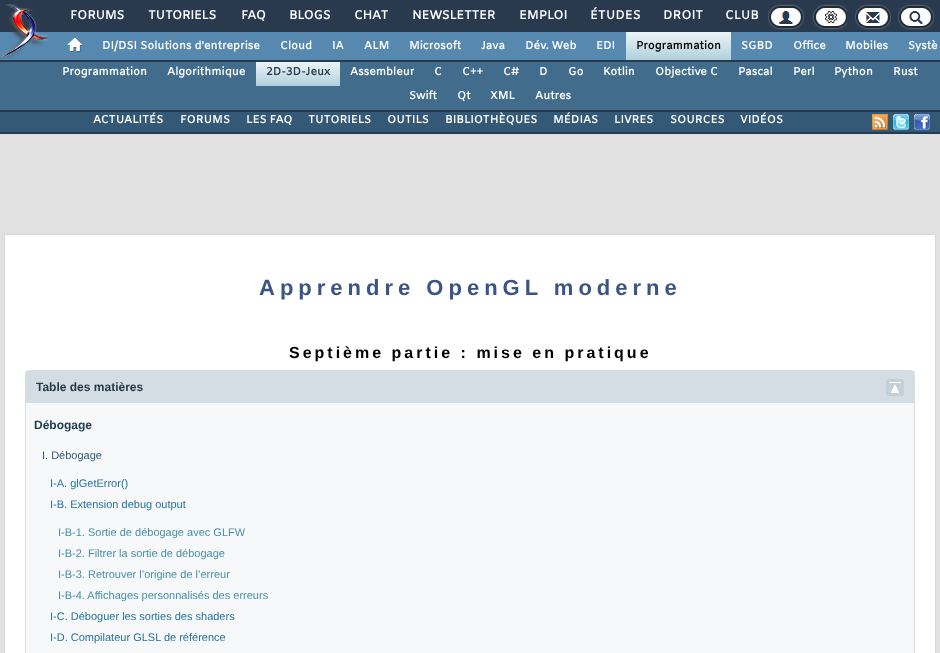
async function draw(canvas) {
  canvas.width = 940;
  canvas.height = 653;
  const ctx = canvas.getContext('2d');
  ctx.miterLimit = 4;
  ctx.fontKerning = 'normal';
  function label(s, x, y, font, color) {
    ctx.font = font;
    ctx.fillStyle = color;
    ctx.fillText(s, x, y);
  }
  function rect(x, y, w, h, color) {
    ctx.fillStyle = color;
    ctx.fillRect(x, y, w, h);
  }
  function roundedRect(x, y, w, h, r, color) {
    ctx.fillStyle = color;
    ctx.beginPath();
    ctx.roundRect(x, y, w, h, r);
    ctx.fill();
  }
  async function image(src, x, y, w, h) {
    const img = new Image();
    img.src = src;
    await img.decode();
    ctx.drawImage(img, x, y, w, h);
  }
  let gradient;

  rect(0, 0, 940, 653, '#293a4e');
  rect(0, 32, 940, 28, '#5789b0');
  await image('assets/img1.png', 0, 4, 48, 55);
  ctx.letterSpacing = '-0.25px';
  label('FORUMS', 70, 19, 'bold 12.25px Amiko', '#fff');
  label('TUTORIELS', 148, 19, 'bold 12.25px Amiko', '#fff');
  label('FAQ', 241, 19, 'bold 12.25px Amiko', '#fff');
  label('BLOGS', 289, 19, 'bold 12.25px Amiko', '#fff');
  label('CHAT', 354, 19, 'bold 12.25px Amiko', '#fff');
  label('NEWSLETTER', 412, 19, 'bold 12.25px Amiko', '#fff');
  ctx.letterSpacing = '0px';
  label('EMPLOI', 519, 19, 'bold 12.25px Amiko', '#fff');
  label('ÉTUDES', 590, 19, 'bold 12.25px Amiko', '#fff');
  label('DROIT', 663, 19, 'bold 12.25px Amiko', '#fff');
  label('CLUB', 725, 19, 'bold 12.25px Amiko', '#fff');
  await image('assets/img2.png', 768, 4, 36, 26);
  await image('assets/img3.png', 812, 4, 35, 26);
  await image('assets/img4.png', 855, 4, 36, 26);
  await image('assets/img5.png', 898, 4, 36, 26);
  await image('assets/img6.png', 67, 38, 16, 14);
  label('DI/DSI Solutions d\'entreprise', 102, 49, 'bold 11px Amiko', '#fff');
  label('Cloud', 280, 49, 'bold 11px Amiko', '#fff');
  label('IA', 332, 49, 'bold 11px Amiko', '#fff');
  label('ALM', 364, 49, 'bold 11px Amiko', '#fff');
  label('Microsoft', 409, 49, 'bold 11px Amiko', '#fff');
  label('Java', 481, 49, 'bold 11px Amiko', '#fff');
  label('Dév. Web', 525, 49, 'bold 11px Amiko', '#fff');
  label('EDI', 596, 49, 'bold 11px Amiko', '#fff');
  gradient = ctx.createLinearGradient(679, 32, 679, 60);
  gradient.addColorStop(0, '#eaf5f8');
  gradient.addColorStop(0.37, '#d8e6ec');
  gradient.addColorStop(1, '#aed1dd');
  ctx.fillStyle = gradient;
  ctx.fillRect(626, 32, 105, 28);
  label('Programmation', 636, 49, 'bold 11px Amiko', '#000');
  label('SGBD', 741, 49, 'bold 11px Amiko', '#fff');
  label('Office', 793, 49, 'bold 11px Amiko', '#fff');
  label('Mobiles', 845, 49, 'bold 11px Amiko', '#fff');
  label('Systè', 908, 49, 'bold 11px Amiko', '#fff');
  rect(0, 62, 940, 48, '#426c8c');
  label('Programmation', 62, 75, 'bold 11px Amiko', '#fff');
  label('Algorithmique', 167, 75, 'bold 11px Amiko', '#fff');
  gradient = ctx.createLinearGradient(298, 62, 298, 86);
  gradient.addColorStop(0, '#eaf5f8');
  gradient.addColorStop(0.37, '#d8e6ec');
  gradient.addColorStop(1, '#aed1dd');
  ctx.fillStyle = gradient;
  ctx.fillRect(256, 62, 84, 24);
  label('2D-3D-Jeux', 266, 75, 'bold 11px Amiko', '#293a4e');
  label('Assembleur', 350, 75, 'bold 11px Amiko', '#fff');
  label('C', 434, 75, 'bold 11px Amiko', '#fff');
  label('C++', 462, 75, 'bold 11px Amiko', '#fff');
  label('C#', 503, 75, 'bold 11px Amiko', '#fff');
  label('D', 539, 75, 'bold 11px Amiko', '#fff');
  label('Go', 568, 75, 'bold 11px Amiko', '#fff');
  label('Kotlin', 603, 75, 'bold 11px Amiko', '#fff');
  label('Objective C', 655, 75, 'bold 11px Amiko', '#fff');
  label('Pascal', 738, 75, 'bold 11px Amiko', '#fff');
  label('Perl', 793, 75, 'bold 11px Amiko', '#fff');
  label('Python', 834, 75, 'bold 11px Amiko', '#fff');
  label('Rust', 893, 75, 'bold 11px Amiko', '#fff');
  label('Swift', 409, 99, 'bold 11px Amiko', '#fff');
  label('Qt', 457, 99, 'bold 11px Amiko', '#fff');
  label('XML', 490, 99, 'bold 11px Amiko', '#fff');
  label('Autres', 535, 99, 'bold 11px Amiko', '#fff');
  rect(0, 112, 940, 20, '#345976');
  label('ACTUALITÉS', 93, 123, 'bold 11px Amiko', '#fff');
  label('FORUMS', 180, 123, 'bold 11px Amiko', '#fff');
  label('LES FAQ', 246, 123, 'bold 11px Amiko', '#fff');
  label('TUTORIELS', 308, 123, 'bold 11px Amiko', '#fff');
  label('OUTILS', 387, 123, 'bold 11px Amiko', '#fff');
  label('BIBLIOTHÈQUES', 445, 123, 'bold 11px Amiko', '#fff');
  label('MÉDIAS', 553, 123, 'bold 11px Amiko', '#fff');
  label('LIVRES', 614, 123, 'bold 11px Amiko', '#fff');
  label('SOURCES', 670, 123, 'bold 11px Amiko', '#fff');
  label('VIDÉOS', 740, 123, 'bold 11px Amiko', '#fff');
  await image('assets/img7.png', 872, 114, 16, 16);
  await image('assets/img8.png', 893, 114, 16, 16);
  await image('assets/img9.png', 914, 114, 16, 16);
  rect(0, 134, 940, 519, '#e1e1e2');
  ctx.fillStyle = '#fff';
  ctx.beginPath();
  ctx.rect(4.5, 234.5, 931, 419);
  ctx.fill();
  ctx.strokeStyle = '#d7d9db';
  ctx.stroke();
  ctx.letterSpacing = '5px';
  label('Apprendre OpenGL moderne', 259, 295, 'bold 22px Liberation Sans', '#3a5486');
  ctx.letterSpacing = '3px';
  label('Septième partie : mise en pratique', 289, 358, 'bold 16px Liberation Sans', '#000');
  ctx.fillStyle = '#f6f8f9';
  ctx.beginPath();
  ctx.roundRect(25.5, 370.5, 889, 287, 3.5);
  ctx.fill();
  ctx.strokeStyle = '#ddd';
  ctx.stroke();
  ctx.fillStyle = '#9bb1bc33';
  ctx.beginPath();
  ctx.roundRect(26, 371, 888, 32, [4, 4, 0, 0]);
  ctx.fill();
  rect(26, 371, 888, 32, '#9bafbe33');
  ctx.letterSpacing = '0px';
  label('Table des matières', 36, 391, 'bold 12px Liberation Sans', '#243c47');
  roundedRect(886, 379, 18, 17, 3, '#c4d0d8');
  await image('assets/img10.png', 889, 382, 12, 11);
  label('Débogage', 34, 429, 'bold 12px Liberation Sans', '#203d4f');
  label('I. Débogage', 42, 459, '11px Liberation Sans', '#30577c');
  label('I-A. glGetError()', 50, 487, '11px Liberation Sans', '#27729d');
  label('I-B. Extension debug output', 50, 508, '11px Liberation Sans', '#27729d');
  label('I-B-1. Sortie de débogage avec GLFW', 58, 536, '11px Liberation Sans', '#4a8fa8');
  label('I-B-2. Filtrer la sortie de débogage', 58, 557, '11px Liberation Sans', '#4a8fa8');
  label('I-B-3. Retrouver l’origine de l’erreur', 58, 578, '11px Liberation Sans', '#4a8fa8');
  label('I-B-4. Affichages personnalisés des erreurs', 58, 599, '11px Liberation Sans', '#4a8fa8');
  label('I-C. Déboguer les sorties des shaders', 50, 620, '11px Liberation Sans', '#27729d');
  label('I-D. Compilateur GLSL de référence', 50, 641, '11px Liberation Sans', '#27729d');
}

draw(document.querySelector('canvas'));
